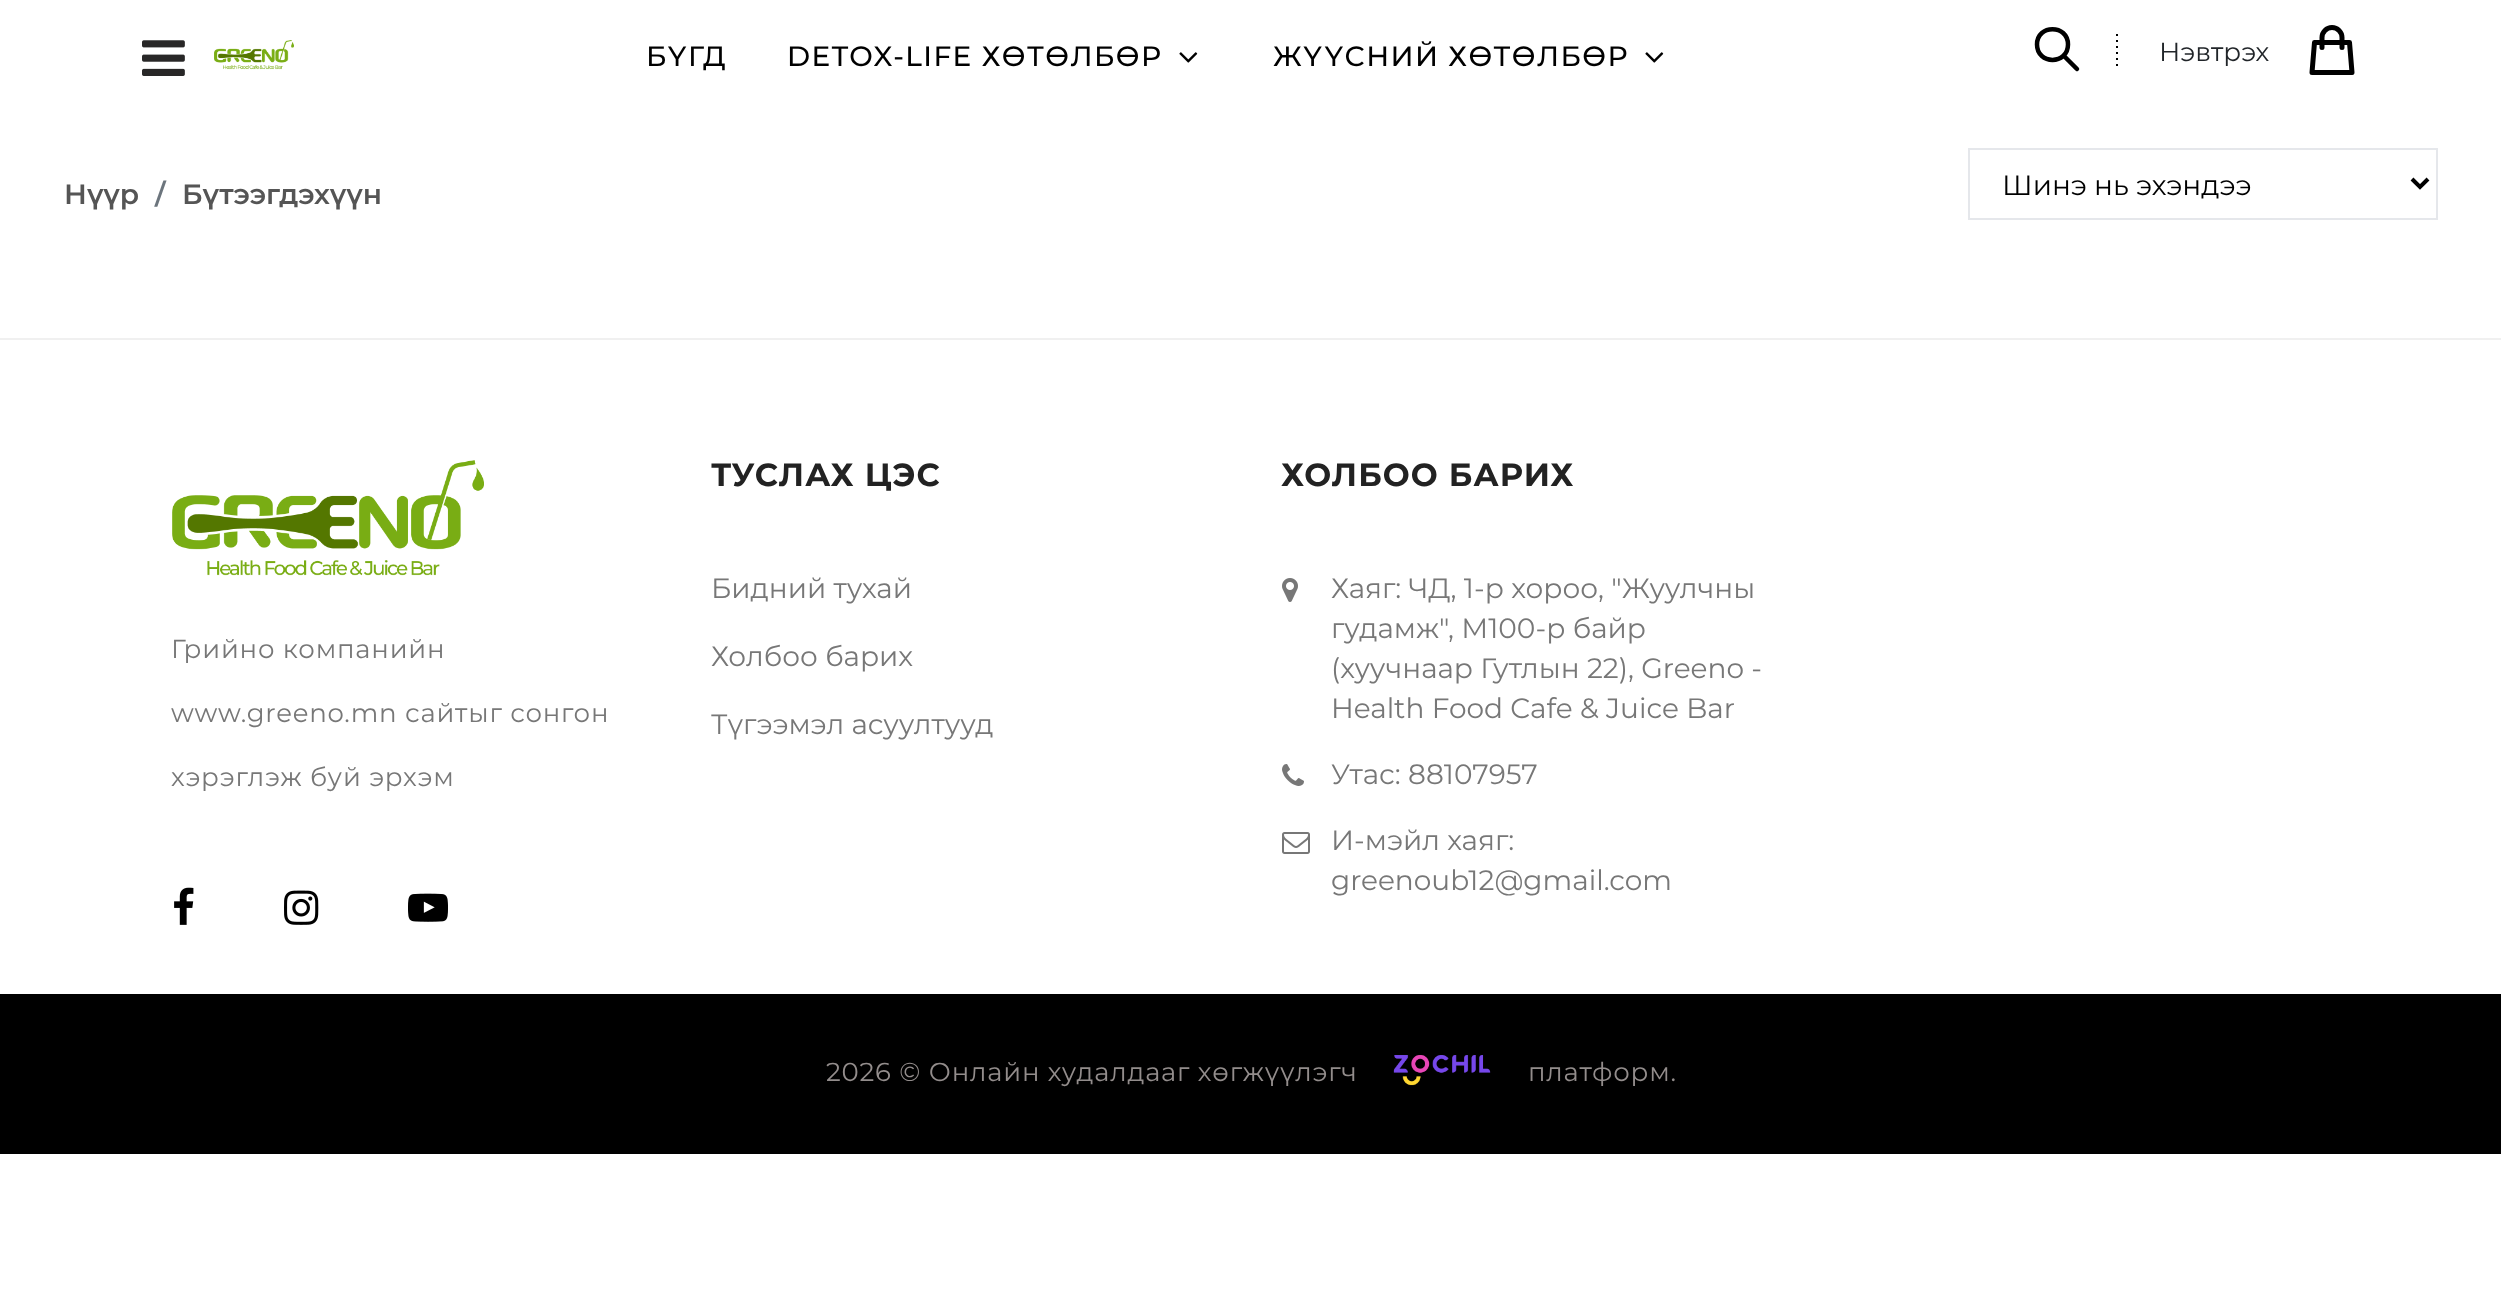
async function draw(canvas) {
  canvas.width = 2501;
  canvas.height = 1300;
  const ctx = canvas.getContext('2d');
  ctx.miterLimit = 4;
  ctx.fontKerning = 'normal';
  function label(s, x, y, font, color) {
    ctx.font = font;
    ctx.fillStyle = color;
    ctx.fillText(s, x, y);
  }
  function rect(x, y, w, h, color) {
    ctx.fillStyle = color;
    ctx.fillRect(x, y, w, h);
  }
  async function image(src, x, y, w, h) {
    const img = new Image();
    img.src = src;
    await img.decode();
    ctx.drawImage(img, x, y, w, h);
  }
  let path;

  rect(0, 0, 2501, 1300, '#fff');
  await image('assets/img1.png', 142, 40, 43, 36);
  await image('assets/img2.png', 214, 40, 80, 30);
  ctx.letterSpacing = '1.4px';
  label('БҮГД', 646, 66, '500 28px Montserrat', '#000');
  label('DETOX-LIFE ХӨТӨЛБӨР', 787, 66, '500 28px Montserrat', '#000');
  await image('assets/img3.png', 1179, 52, 19, 11);
  label('ЖҮҮСНИЙ ХӨТӨЛБӨР', 1273, 66, '500 28px Montserrat', '#000');
  await image('assets/img3.png', 1645, 52, 19, 11);
  path = new Path2D('M2077 69L2064 56M2068 44.5C2068 65 2037 65 2037 44.5C2037 24 2068 24 2068 44.5Z');
  ctx.strokeStyle = '#000';
  ctx.lineWidth = 4.5;
  ctx.lineCap = 'round';
  ctx.lineJoin = 'round';
  ctx.stroke(path);
  await image('assets/img4.png', 2116, 34, 2, 32);
  ctx.letterSpacing = '0px';
  label('Нэвтрэх', 2159, 61, '26px Montserrat', '#212529');
  path = new Path2D('M2342 47.5V37.5C2342 32 2337.5 27.5 2332 27.5C2326.5 27.5 2322 32 2322 37.5V47.5M2314.5 42.5H2349.5L2352 72.5H2312Z');
  ctx.lineWidth = 5;
  ctx.stroke(path);
  label('Нүүр', 64, 204, '600 28px Montserrat', '#555');
  label('/', 155, 204, '600 28px Montserrat', '#6c757d');
  label('Бүтээгдэхүүн', 182, 204, '600 28px Montserrat', '#555');
  ctx.strokeStyle = '#e5e7eb';
  ctx.lineWidth = 2;
  ctx.lineJoin = 'miter';
  ctx.strokeRect(1969, 149, 468, 70);
  path = new Path2D('M2412 179L2420 187L2428 179');
  ctx.strokeStyle = '#000';
  ctx.lineWidth = 4;
  ctx.lineCap = 'butt';
  ctx.stroke(path);
  label('Шинэ нь эхэндээ', 2002, 195, '28px Montserrat', '#000');
  rect(0, 338, 2501, 2, '#f0f0f0');
  await image('assets/img5.png', 172, 460, 312, 116);
  ctx.letterSpacing = '0.8px';
  label('Грийно компанийн', 171, 658, '26px Montserrat', '#777');
  label('www.greeno.mn сайтыг сонгон', 171, 722, '26px Montserrat', '#777');
  label('хэрэглэж буй эрхэм', 171, 786, '26px Montserrat', '#777');
  await image('assets/img6.png', 174, 887, 20, 38);
  await image('assets/img7.png', 284, 890, 35, 35);
  await image('assets/img8.png', 408, 893, 40, 29);
  ctx.letterSpacing = '1px';
  label('ТУСЛАХ ЦЭС', 711, 486, 'bold 32px Montserrat', '#222');
  ctx.letterSpacing = '0px';
  label('Бидний тухай', 711, 598, '28px Montserrat', '#777');
  label('Холбоо барих', 711, 666, '28px Montserrat', '#777');
  label('Түгээмэл асуултууд', 711, 734, '28px Montserrat', '#777');
  ctx.letterSpacing = '1px';
  label('ХОЛБОО БАРИХ', 1281, 486, 'bold 32px Montserrat', '#222');
  await image('assets/img9.png', 1282, 578, 16, 24);
  ctx.letterSpacing = '0px';
  label('Хаяг: ЧД, 1-р хороо, "Жуулчны', 1331, 598, '28px Montserrat', '#777');
  label('гудамж", М100-р байр', 1331, 638, '28px Montserrat', '#777');
  label('(хуучнаар Гутлын 22), Greeno -', 1331, 678, '28px Montserrat', '#777');
  label('Health Food Cafe & Juice Bar', 1331, 718, '28px Montserrat', '#777');
  await image('assets/img10.png', 1282, 764, 22, 22);
  label('Утас: 88107957', 1331, 784, '28px Montserrat', '#777');
  await image('assets/img11.png', 1282, 832, 28, 22);
  label('И-мэйл хаяг:', 1331, 850, '28px Montserrat', '#777');
  label('greenoub12@gmail.com', 1331, 890, '28px Montserrat', '#777');
  rect(0, 994, 2501, 160, '#000');
  ctx.letterSpacing = '0.8px';
  label('2026 © Онлайн худалдааг хөгжүүлэгч', 826, 1081, '26px Montserrat', '#938d8c');
  await image('assets/img12.png', 1393, 1055, 98, 31);
  label('платформ.', 1528, 1081, '26px Montserrat', '#938d8c');
}

draw(document.querySelector('canvas'));
